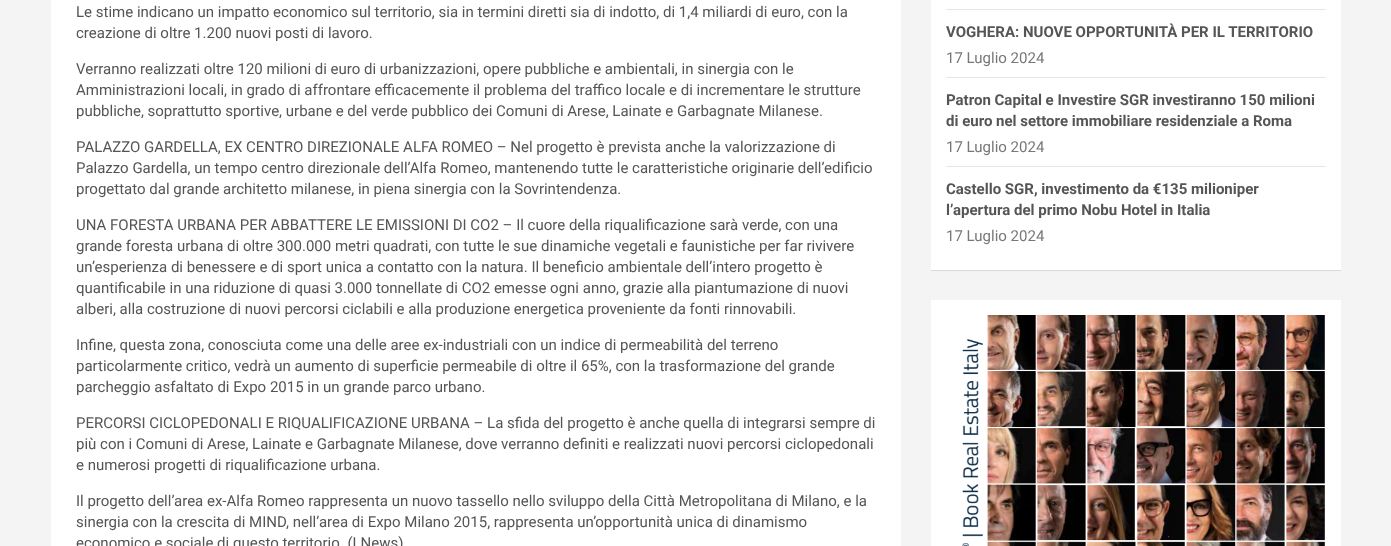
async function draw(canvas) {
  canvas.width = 1391;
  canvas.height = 546;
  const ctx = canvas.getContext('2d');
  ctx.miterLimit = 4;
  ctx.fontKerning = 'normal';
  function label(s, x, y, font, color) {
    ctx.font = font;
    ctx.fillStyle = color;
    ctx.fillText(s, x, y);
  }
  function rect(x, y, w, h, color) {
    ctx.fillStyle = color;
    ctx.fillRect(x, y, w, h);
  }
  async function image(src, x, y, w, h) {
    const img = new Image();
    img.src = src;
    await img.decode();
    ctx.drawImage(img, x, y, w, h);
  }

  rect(0, 0, 1391, 546, '#f4f4f4');
  rect(51, 0, 850, 546, '#fff');
  label('Le stime indicano un impatto economico sul territorio, sia in termini diretti sia di indotto, di 1,4 miliardi di euro, con la', 76, 17, '15px Roboto', '#555');
  label('creazione di oltre 1.200 nuovi posti di lavoro.', 76, 38, '15px Roboto', '#555');
  label('Verranno realizzati oltre 120 milioni di euro di urbanizzazioni, opere pubbliche e ambientali, in sinergia con le', 76, 74, '15px Roboto', '#555');
  label('Amministrazioni locali, in grado di affrontare efficacemente il problema del traffico locale e di incrementare le strutture', 76, 95, '15px Roboto', '#555');
  label('pubbliche, soprattutto sportive, urbane e del verde pubblico dei Comuni di Arese, Lainate e Garbagnate Milanese.', 76, 116, '15px Roboto', '#555');
  label('PALAZZO GARDELLA, EX CENTRO DIREZIONALE ALFA ROMEO – Nel progetto è prevista anche la valorizzazione di', 76, 152, '15px Roboto', '#555');
  label('Palazzo Gardella, un tempo centro direzionale dell’Alfa Romeo, mantenendo tutte le caratteristiche originarie dell’edificio', 76, 173, '15px Roboto', '#555');
  label('progettato dal grande architetto milanese, in piena sinergia con la Sovrintendenza.', 76, 194, '15px Roboto', '#555');
  label('UNA FORESTA URBANA PER ABBATTERE LE EMISSIONI DI CO2 – Il cuore della riqualificazione sarà verde, con una', 76, 230, '15px Roboto', '#555');
  label('grande foresta urbana di oltre 300.000 metri quadrati, con tutte le sue dinamiche vegetali e faunistiche per far rivivere', 76, 251, '15px Roboto', '#555');
  label('un’esperienza di benessere e di sport unica a contatto con la natura. Il beneficio ambientale dell’intero progetto è', 76, 272, '15px Roboto', '#555');
  label('quantificabile in una riduzione di quasi 3.000 tonnellate di CO2 emesse ogni anno, grazie alla piantumazione di nuovi', 76, 293, '15px Roboto', '#555');
  label('alberi, alla costruzione di nuovi percorsi ciclabili e alla produzione energetica proveniente da fonti rinnovabili.', 76, 314, '15px Roboto', '#555');
  label('Infine, questa zona, conosciuta come una delle aree ex-industriali con un indice di permeabilità del terreno', 76, 350, '15px Roboto', '#555');
  label('particolarmente critico, vedrà un aumento di superficie permeabile di oltre il 65%, con la trasformazione del grande', 76, 371, '15px Roboto', '#555');
  label('parcheggio asfaltato di Expo 2015 in un grande parco urbano.', 76, 392, '15px Roboto', '#555');
  label('PERCORSI CICLOPEDONALI E RIQUALIFICAZIONE URBANA – La sfida del progetto è anche quella di integrarsi sempre di', 76, 428, '15px Roboto', '#555');
  label('più con i Comuni di Arese, Lainate e Garbagnate Milanese, dove verranno definiti e realizzati nuovi percorsi ciclopedonali', 76, 449, '15px Roboto', '#555');
  label('e numerosi progetti di riqualificazione urbana.', 76, 470, '15px Roboto', '#555');
  label('Il progetto dell’area ex-Alfa Romeo rappresenta un nuovo tassello nello sviluppo della Città Metropolitana di Milano, e la', 76, 506, '15px Roboto', '#555');
  label('sinergia con la crescita di MIND, nell’area di Expo Milano 2015, rappresenta un’opportunità unica di dinamismo', 76, 527, '15px Roboto', '#555');
  label('economico e sociale di questo territorio. (LNews)', 76, 548, '15px Roboto', '#555');
  ctx.fillStyle = '#0000001a';
  ctx.filter = 'blur(0.5px)';
  ctx.beginPath();
  ctx.rect(931, -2, 410, 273);
  ctx.fill();
  ctx.filter = 'none';
  rect(931, 0, 410, 270, '#fff');
  rect(946, 9, 380, 1, '#e6e6e6');
  rect(946, 77, 380, 1, '#e6e6e6');
  label('VOGHERA: NUOVE OPPORTUNITÀ PER IL TERRITORIO', 946, 37, 'bold 15px Roboto', '#555');
  label('17 Luglio 2024', 946, 63, '15px Roboto', '#777');
  rect(946, 166, 380, 1, '#e6e6e6');
  label('Patron Capital e Investire SGR investiranno 150 milioni', 946, 105, 'bold 15px Roboto', '#555');
  label('di euro nel settore immobiliare residenziale a Roma', 946, 126, 'bold 15px Roboto', '#555');
  label('17 Luglio 2024', 946, 152, '15px Roboto', '#777');
  label('Castello SGR, investimento da €135 milioniper', 946, 194, 'bold 15px Roboto', '#555');
  label('l’apertura del primo Nobu Hotel in Italia', 946, 215, 'bold 15px Roboto', '#555');
  label('17 Luglio 2024', 946, 241, '15px Roboto', '#777');
  rect(931, 300, 410, 246, '#fff');
  await image('assets/img1.png', 946, 315, 379, 231);
}

draw(document.querySelector('canvas'));
